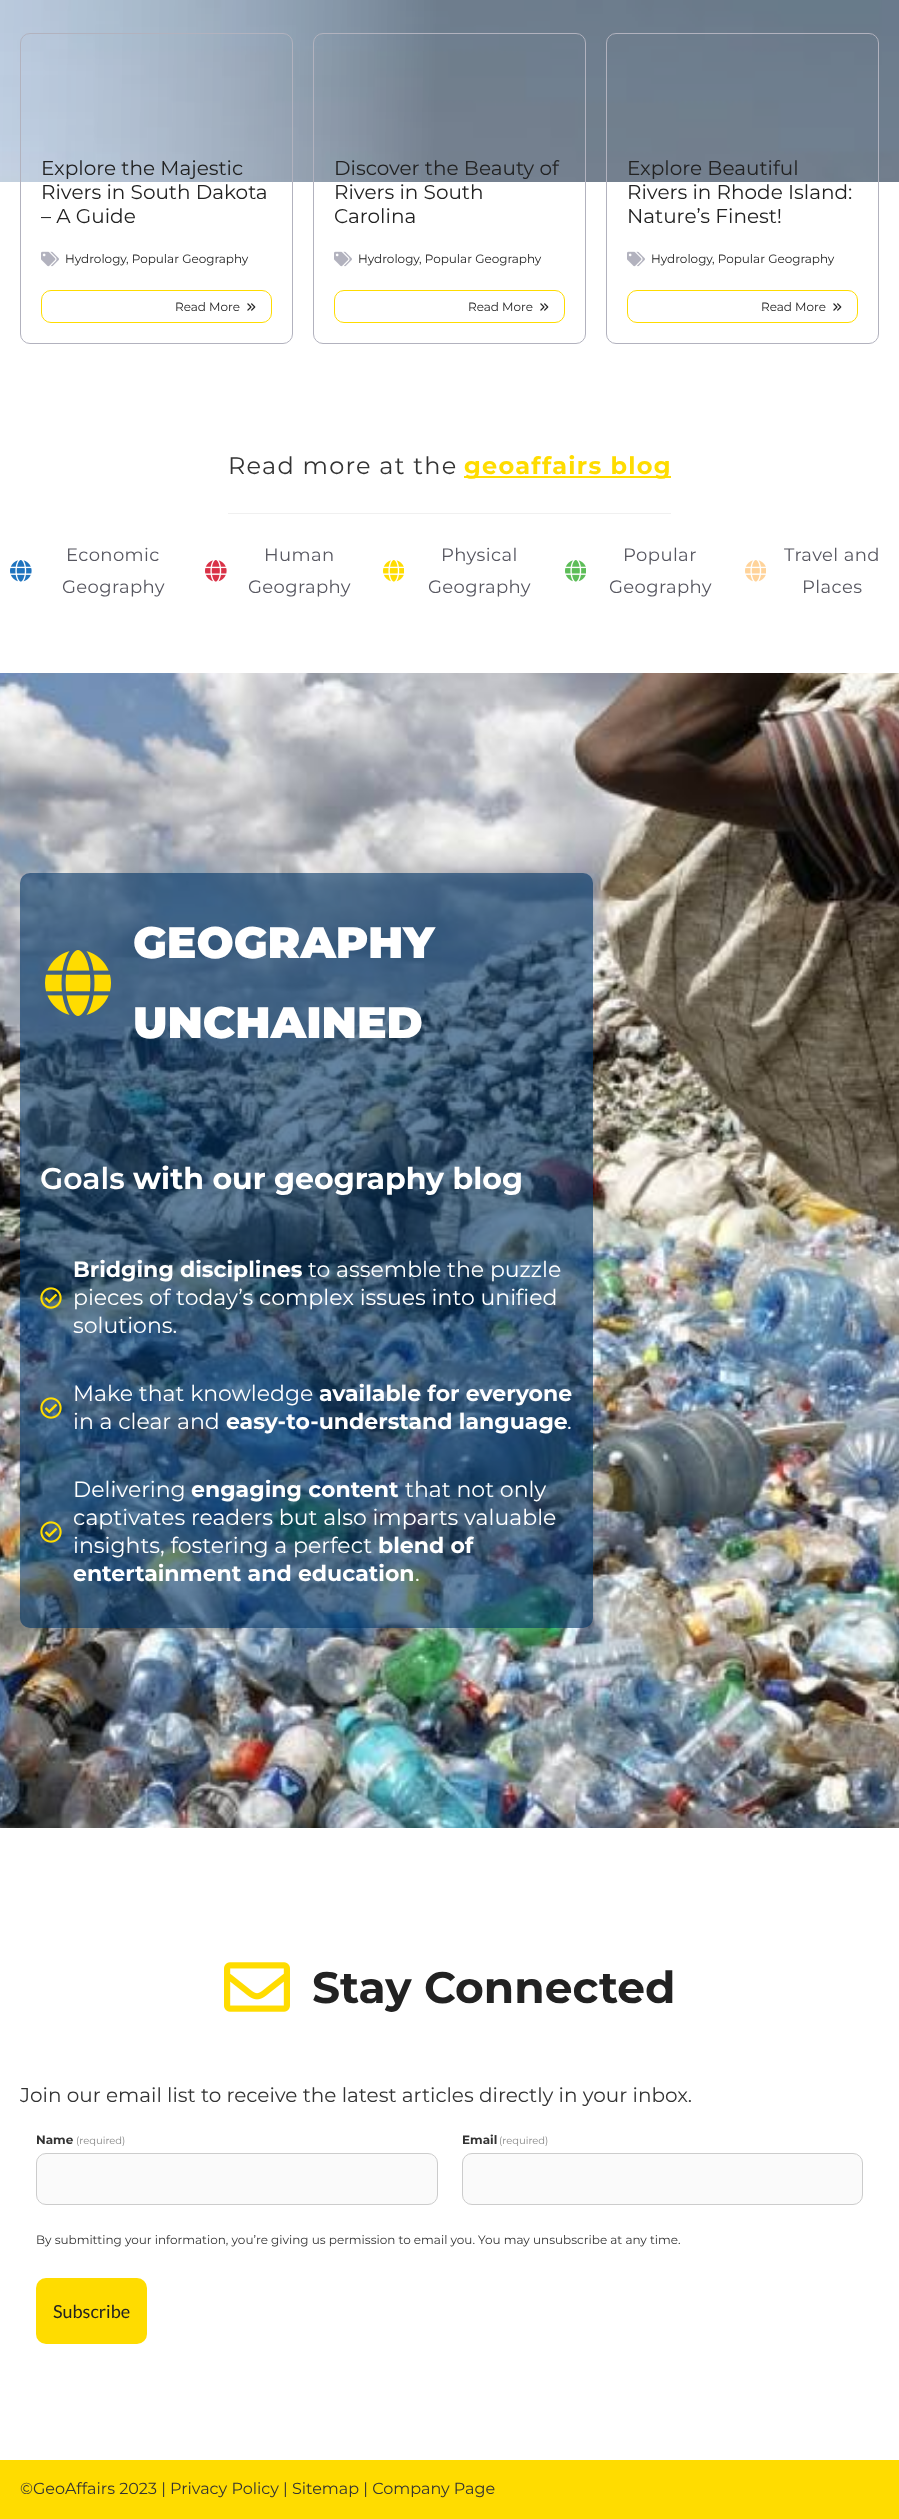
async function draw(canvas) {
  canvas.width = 899;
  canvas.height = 2519;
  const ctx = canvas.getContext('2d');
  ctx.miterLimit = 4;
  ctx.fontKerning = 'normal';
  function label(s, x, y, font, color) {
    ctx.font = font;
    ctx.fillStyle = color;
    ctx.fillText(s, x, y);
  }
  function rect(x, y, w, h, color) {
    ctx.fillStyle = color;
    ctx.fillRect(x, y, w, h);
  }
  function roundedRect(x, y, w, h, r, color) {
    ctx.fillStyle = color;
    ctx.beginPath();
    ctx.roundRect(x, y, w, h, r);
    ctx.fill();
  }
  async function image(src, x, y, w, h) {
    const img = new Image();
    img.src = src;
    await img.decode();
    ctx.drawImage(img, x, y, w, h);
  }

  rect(0, 0, 899, 2519, '#fff');
  await image('assets/img1.png', 0, 0, 899, 182);
  ctx.beginPath();
  ctx.roundRect(20.5, 33.5, 272, 310, 9.5);
  ctx.strokeStyle = '#b2b2be';
  ctx.stroke();
  label('Explore the Majestic', 41, 175, '20px Montserrat', '#222');
  label('Rivers in South Dakota', 41, 199, '20px Montserrat', '#222');
  label('– A Guide', 41, 223, '20px Montserrat', '#222');
  await image('assets/img2.png', 41, 251, 18, 16);
  label('Hydrology', 65, 263, '12px Montserrat', '#222');
  label(', Popular Geography', 126, 263, '12px Montserrat', '#222');
  ctx.beginPath();
  ctx.roundRect(41.5, 290.5, 230, 32, 9.5);
  ctx.strokeStyle = '#ffdc00';
  ctx.stroke();
  label('Read More', 175, 311, '12px Montserrat', '#222');
  await image('assets/img3.png', 247, 303, 9, 8);
  ctx.beginPath();
  ctx.roundRect(313.5, 33.5, 272, 310, 9.5);
  ctx.strokeStyle = '#b2b2be';
  ctx.stroke();
  label('Discover the Beauty of', 334, 175, '20px Montserrat', '#222');
  label('Rivers in South', 334, 199, '20px Montserrat', '#222');
  label('Carolina', 334, 223, '20px Montserrat', '#222');
  await image('assets/img2.png', 334, 251, 18, 16);
  label('Hydrology', 358, 263, '12px Montserrat', '#222');
  label(', Popular Geography', 419, 263, '12px Montserrat', '#222');
  ctx.beginPath();
  ctx.roundRect(334.5, 290.5, 230, 32, 9.5);
  ctx.strokeStyle = '#ffdc00';
  ctx.stroke();
  label('Read More', 468, 311, '12px Montserrat', '#222');
  await image('assets/img3.png', 540, 303, 9, 8);
  ctx.beginPath();
  ctx.roundRect(606.5, 33.5, 272, 310, 9.5);
  ctx.strokeStyle = '#b2b2be';
  ctx.stroke();
  label('Explore Beautiful', 627, 175, '20px Montserrat', '#222');
  label('Rivers in Rhode Island:', 627, 199, '20px Montserrat', '#222');
  label('Nature’s Finest!', 627, 223, '20px Montserrat', '#222');
  await image('assets/img2.png', 627, 251, 18, 16);
  label('Hydrology', 651, 263, '12px Montserrat', '#222');
  label(', Popular Geography', 712, 263, '12px Montserrat', '#222');
  ctx.beginPath();
  ctx.roundRect(627.5, 290.5, 230, 32, 9.5);
  ctx.strokeStyle = '#ffdc00';
  ctx.stroke();
  label('Read More', 761, 311, '12px Montserrat', '#222');
  await image('assets/img3.png', 833, 303, 9, 8);
  rect(228, 513, 443, 1, '#f0f0f0');
  ctx.letterSpacing = '1.25px';
  label('Read more at the', 228, 474, '24px Montserrat', '#333');
  rect(464, 476, 207, 2, '#ffdc00');
  label('geoaffairs blog', 464, 474, 'bold 24px Montserrat', '#ffdc00');
  await image('assets/img4.png', 10, 560, 22, 22);
  ctx.letterSpacing = '0.4px';
  label('Economic', 66, 561, '18px Montserrat', '#575760');
  label('Geography', 62, 593, '18px Montserrat', '#575760');
  await image('assets/img5.png', 205, 560, 22, 22);
  label('Human', 264, 561, '18px Montserrat', '#575760');
  label('Geography', 248, 593, '18px Montserrat', '#575760');
  await image('assets/img6.png', 383, 560, 21, 22);
  label('Physical', 441, 561, '18px Montserrat', '#575760');
  label('Geography', 428, 593, '18px Montserrat', '#575760');
  await image('assets/img7.png', 565, 560, 21, 22);
  label('Popular', 623, 561, '18px Montserrat', '#575760');
  label('Geography', 609, 593, '18px Montserrat', '#575760');
  await image('assets/img8.png', 745, 560, 21, 22);
  label('Travel and', 784, 561, '18px Montserrat', '#575760');
  label('Places', 802, 593, '18px Montserrat', '#575760');
  await image('assets/img9.png', 0, 673, 899, 1155);
  roundedRect(20, 873, 573, 755, 10, '#00336699');
  await image('assets/img10.png', 45, 950, 66, 66);
  ctx.letterSpacing = '0px';
  label('GEOGRAPHY', 133, 958, '900 44px Montserrat', '#fff');
  label('UNCHAINED', 133, 1038, '900 44px Montserrat', '#fff');
  label('Goals', 40, 1189, '600 30px Montserrat', '#fff');
  label('with our geography blog', 133, 1189, 'bold 30px Montserrat', '#fff');
  await image('assets/img11.png', 40, 1287, 22, 22);
  label('Bridging disciplines', 73, 1277, 'bold 22px Montserrat', '#fff');
  label('to assemble the puzzle', 308, 1277, '22px Montserrat', '#fff');
  label('pieces of today’s complex issues into unified', 73, 1305, '22px Montserrat', '#fff');
  label('solutions.', 73, 1333, '22px Montserrat', '#fff');
  await image('assets/img12.png', 40, 1397, 22, 22);
  label('Make that knowledge', 73, 1401, '22px Montserrat', '#fff');
  label('available for everyone', 319, 1401, 'bold 22px Montserrat', '#fff');
  label('in a clear and', 73, 1429, '22px Montserrat', '#fff');
  label('easy-to-understand language', 226, 1429, 'bold 22px Montserrat', '#fff');
  label('.', 567, 1429, '22px Montserrat', '#fff');
  await image('assets/img13.png', 40, 1521, 22, 22);
  label('Delivering', 73, 1497, '22px Montserrat', '#fff');
  label('engaging content', 191, 1497, 'bold 22px Montserrat', '#fff');
  label('that not only', 405, 1497, '22px Montserrat', '#fff');
  label('captivates readers but also imparts valuable', 73, 1525, '22px Montserrat', '#fff');
  label('insights, fostering a perfect', 73, 1553, '22px Montserrat', '#fff');
  label('blend of', 378, 1553, 'bold 22px Montserrat', '#fff');
  label('entertainment and education', 73, 1581, 'bold 22px Montserrat', '#fff');
  label('.', 415, 1581, '22px Montserrat', '#fff');
  await image('assets/img14.png', 224, 1962, 66, 50);
  label('Stay Connected', 312, 2003, 'bold 44px Montserrat', '#222');
  label('Join our email list to receive the latest articles directly in your inbox.', 20, 2102, '20px Montserrat', '#333');
  label('Name', 36, 2144, 'bold 12px Montserrat', '#333');
  label('(required)', 76, 2144, '10px Montserrat', '#858585');
  ctx.fillStyle = '#fafafa';
  ctx.beginPath();
  ctx.roundRect(36.5, 2153.5, 401, 51, 9.5);
  ctx.fill();
  ctx.strokeStyle = '#ccc';
  ctx.stroke();
  label('Email', 462, 2144, 'bold 12px Montserrat', '#333');
  label('(required)', 499, 2144, '10px Montserrat', '#858585');
  ctx.fillStyle = '#fafafa';
  ctx.beginPath();
  ctx.roundRect(462.5, 2153.5, 400, 51, 9.5);
  ctx.fill();
  ctx.stroke();
  label('By submitting your information, you’re giving us permission to email you. You may unsubscribe at any time.', 36, 2244, '12px Montserrat', '#333');
  roundedRect(36, 2278, 111, 66, 10, '#ffdc00');
  label('Subscribe', 53, 2318, '18px Lato', '#222');
  rect(0, 2460, 899, 59, '#ffdc00');
  label('©GeoAffairs 2023 | Privacy Policy | Sitemap | Company Page', 20, 2494, '16px Montserrat', '#333');
}

draw(document.querySelector('canvas'));
